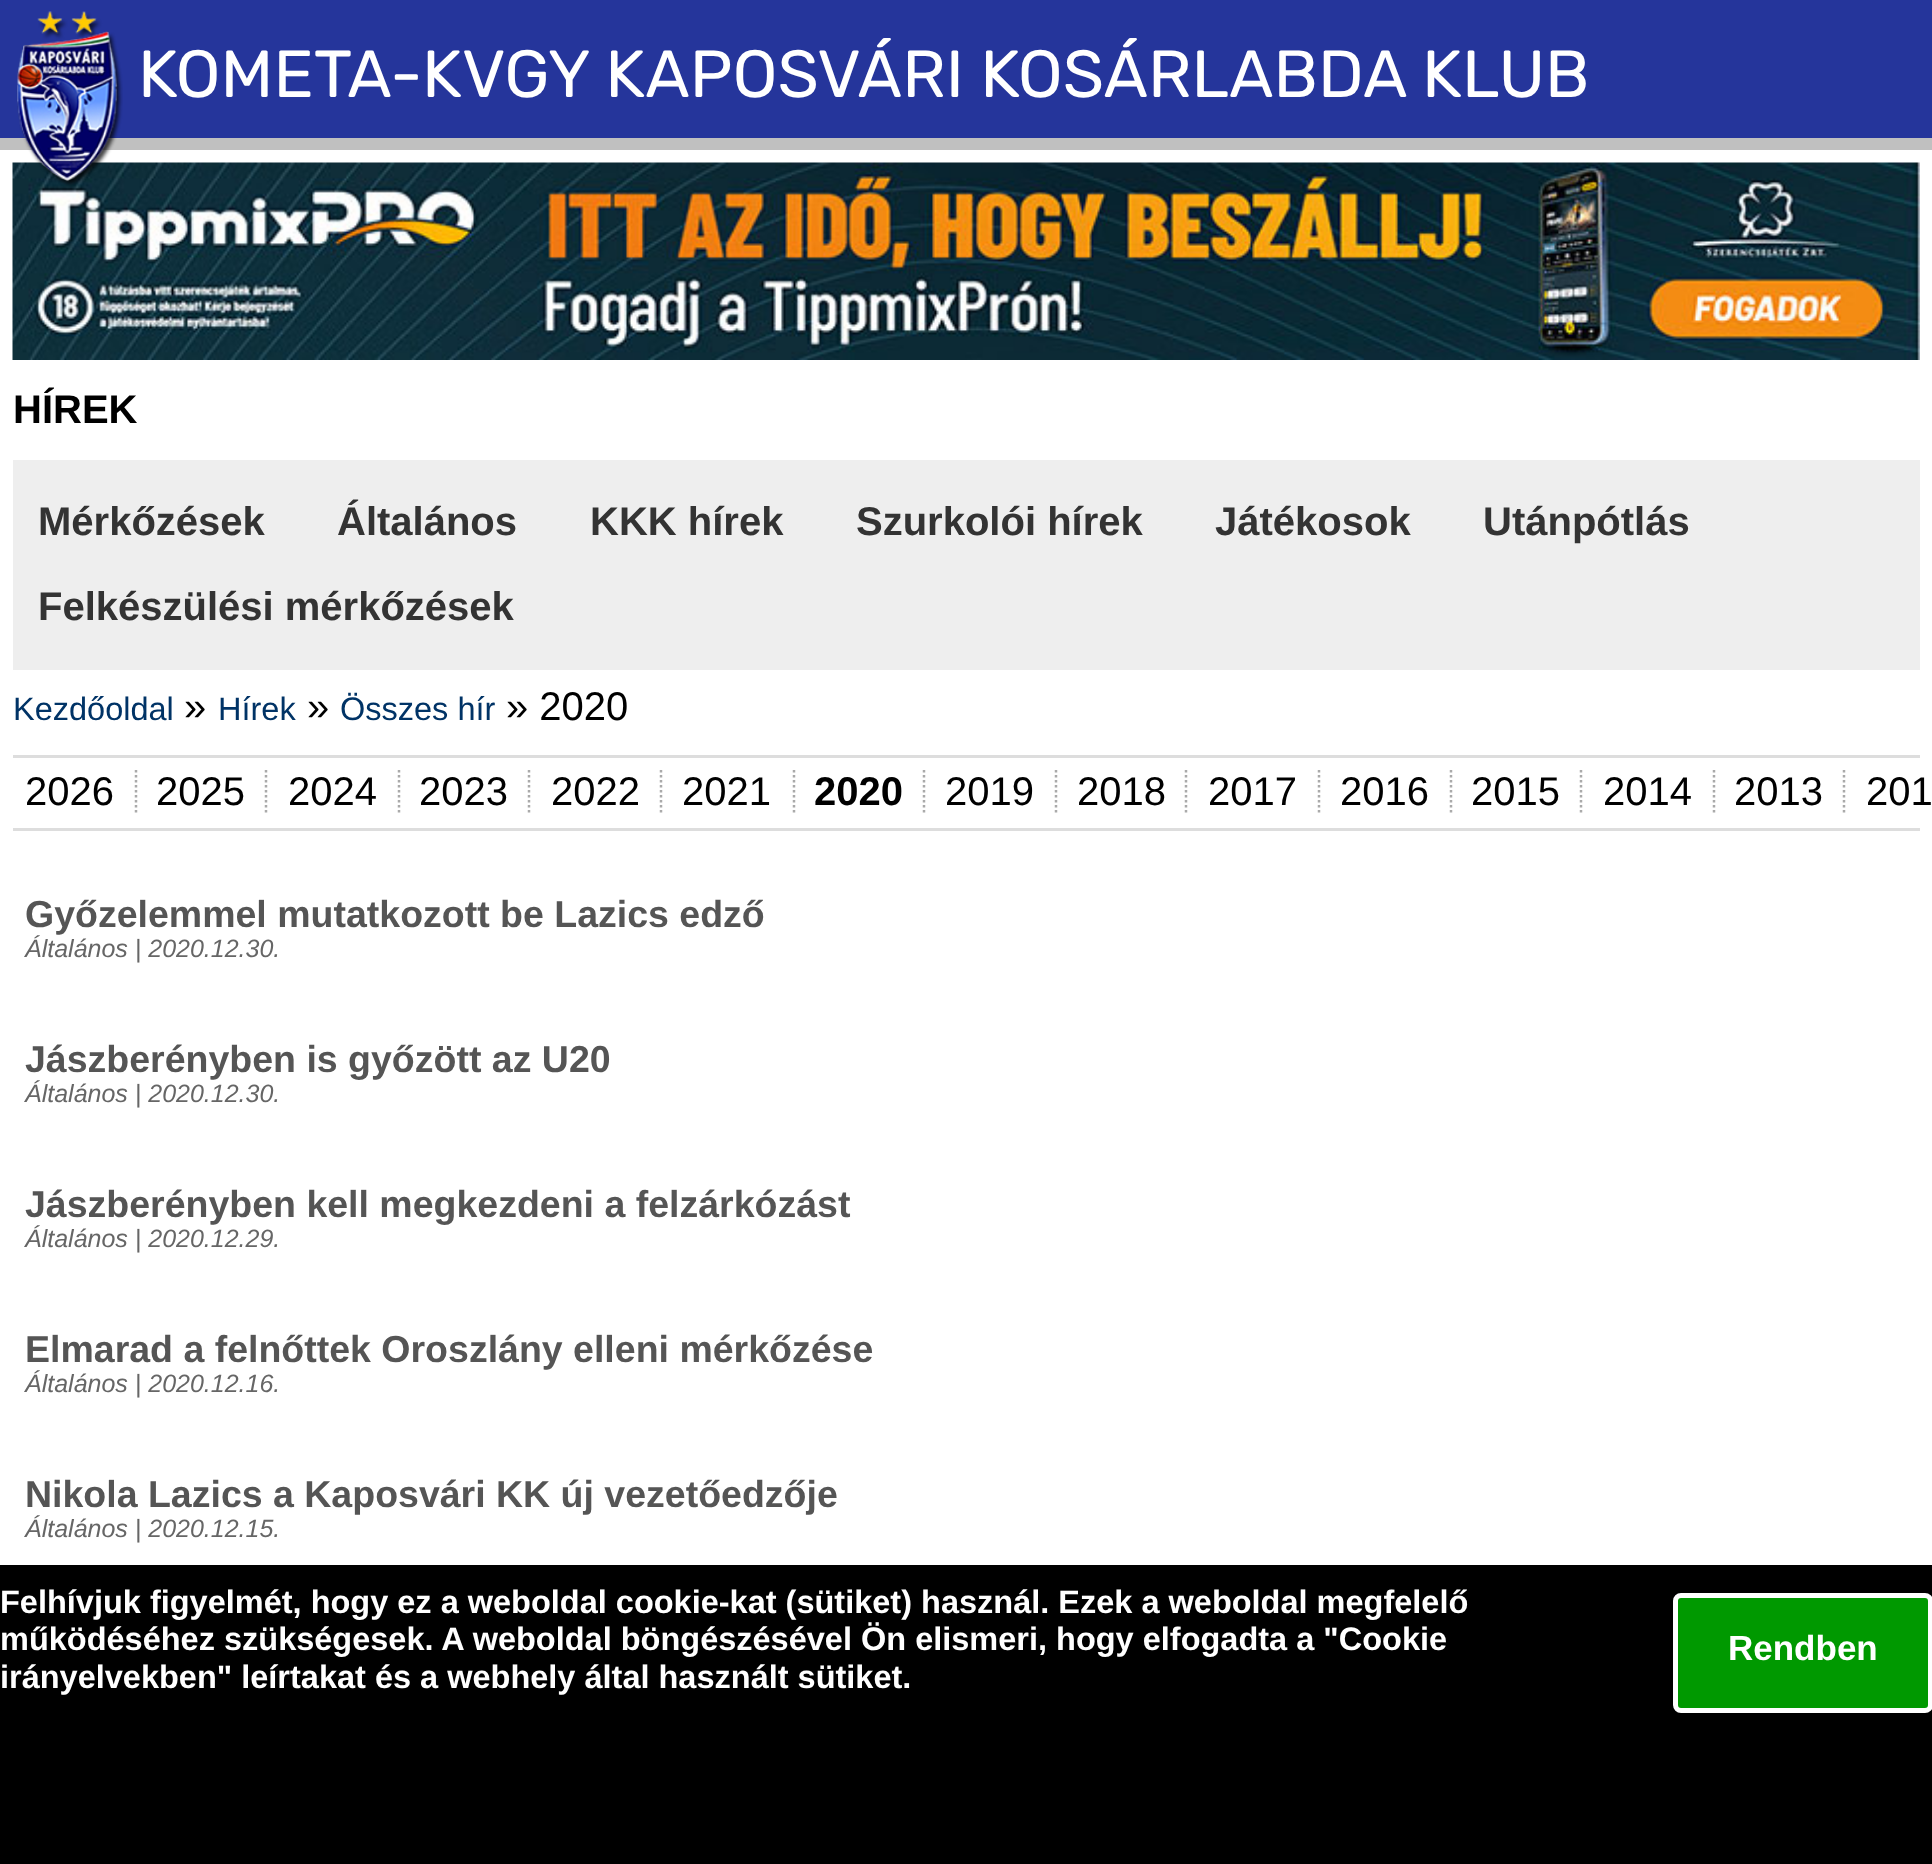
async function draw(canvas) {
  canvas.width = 1932;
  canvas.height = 1864;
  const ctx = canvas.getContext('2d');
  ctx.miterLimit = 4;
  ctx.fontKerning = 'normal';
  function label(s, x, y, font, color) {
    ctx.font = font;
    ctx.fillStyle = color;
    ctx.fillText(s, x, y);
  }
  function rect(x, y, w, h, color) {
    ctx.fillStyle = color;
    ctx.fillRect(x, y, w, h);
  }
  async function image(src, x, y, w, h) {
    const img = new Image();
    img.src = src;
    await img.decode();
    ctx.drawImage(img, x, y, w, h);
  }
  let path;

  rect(0, 0, 1932, 1864, '#fff');
  rect(0, 0, 1932, 138, '#25359b');
  rect(0, 138, 1932, 12, '#c0c0c0');
  await image('assets/img2.png', 12, 162, 1908, 198);
  await image('assets/img1.png', 16, 11, 107, 176);
  label('KOMETA-KVGY KAPOSVÁRI KOSÁRLABDA KLUB', 138, 97, '300 66.5px Rubik', '#fff');
  label('HÍREK', 13, 423, 'bold 40px Liberation Sans', '#000');
  rect(13, 460, 1907, 210, '#eee');
  label('Mérkőzések', 38, 535, 'bold 40px Liberation Sans', '#333');
  label('Általános', 337, 535, 'bold 40px Liberation Sans', '#333');
  label('KKK hírek', 590, 535, 'bold 40px Liberation Sans', '#333');
  label('Szurkolói hírek', 856, 535, 'bold 40px Liberation Sans', '#333');
  label('Játékosok', 1215, 535, 'bold 40px Liberation Sans', '#333');
  label('Utánpótlás', 1483, 535, 'bold 40px Liberation Sans', '#333');
  label('Felkészülési mérkőzések', 38, 620, 'bold 40px Liberation Sans', '#333');
  label('Kezdőoldal', 13, 720, '32.5px Liberation Sans', '#036');
  label('»', 184, 720, '40px Liberation Sans', '#000');
  label('Hírek', 218, 720, '32.5px Liberation Sans', '#036');
  label('»', 307, 720, '40px Liberation Sans', '#000');
  label('Összes hír', 340, 720, '32.5px Liberation Sans', '#036');
  label('» 2020', 506, 720, '40px Liberation Sans', '#000');
  rect(13, 755, 1907, 3, '#ddd');
  rect(13, 828, 1907, 3, '#ddd');
  label('2026', 25, 805, '40px Liberation Sans', '#000');
  path = new Path2D('M136 770V812.5');
  ctx.strokeStyle = '#aaa';
  ctx.lineWidth = 2.5;
  ctx.setLineDash([2.5, 2.5]);
  ctx.stroke(path);
  label('2025', 156, 805, '40px Liberation Sans', '#000');
  path = new Path2D('M266 770V812.5');
  ctx.stroke(path);
  label('2024', 288, 805, '40px Liberation Sans', '#000');
  path = new Path2D('M399 770V812.5');
  ctx.stroke(path);
  label('2023', 419, 805, '40px Liberation Sans', '#000');
  path = new Path2D('M529 770V812.5');
  ctx.stroke(path);
  label('2022', 551, 805, '40px Liberation Sans', '#000');
  path = new Path2D('M661 770V812.5');
  ctx.stroke(path);
  label('2021', 682, 805, '40px Liberation Sans', '#000');
  path = new Path2D('M794 770V812.5');
  ctx.stroke(path);
  label('2020', 814, 805, 'bold 40px Liberation Sans', '#000');
  path = new Path2D('M924 770V812.5');
  ctx.stroke(path);
  label('2019', 945, 805, '40px Liberation Sans', '#000');
  path = new Path2D('M1056 770V812.5');
  ctx.stroke(path);
  label('2018', 1077, 805, '40px Liberation Sans', '#000');
  path = new Path2D('M1186 770V812.5');
  ctx.stroke(path);
  label('2017', 1208, 805, '40px Liberation Sans', '#000');
  path = new Path2D('M1319 770V812.5');
  ctx.stroke(path);
  label('2016', 1340, 805, '40px Liberation Sans', '#000');
  path = new Path2D('M1451 770V812.5');
  ctx.stroke(path);
  label('2015', 1471, 805, '40px Liberation Sans', '#000');
  path = new Path2D('M1581 770V812.5');
  ctx.stroke(path);
  label('2014', 1603, 805, '40px Liberation Sans', '#000');
  path = new Path2D('M1714 770V812.5');
  ctx.stroke(path);
  label('2013', 1734, 805, '40px Liberation Sans', '#000');
  path = new Path2D('M1844 770V812.5');
  ctx.stroke(path);
  label('201', 1866, 805, '40px Liberation Sans', '#000');
  label('Győzelemmel mutatkozott be Lazics edző', 25, 927, 'bold 37.5px Liberation Sans', '#555');
  label('Általános | 2020.12.30.', 25, 957, 'italic 25px Liberation Sans', '#666');
  label('Jászberényben is győzött az U20', 25, 1072, 'bold 37.5px Liberation Sans', '#555');
  label('Általános | 2020.12.30.', 25, 1102, 'italic 25px Liberation Sans', '#666');
  label('Jászberényben kell megkezdeni a felzárkózást', 25, 1217, 'bold 37.5px Liberation Sans', '#555');
  label('Általános | 2020.12.29.', 25, 1247, 'italic 25px Liberation Sans', '#666');
  label('Elmarad a felnőttek Oroszlány elleni mérkőzése', 25, 1362, 'bold 37.5px Liberation Sans', '#555');
  label('Általános | 2020.12.16.', 25, 1392, 'italic 25px Liberation Sans', '#666');
  label('Nikola Lazics a Kaposvári KK új vezetőedzője', 25, 1507, 'bold 37.5px Liberation Sans', '#555');
  label('Általános | 2020.12.15.', 25, 1537, 'italic 25px Liberation Sans', '#666');
  rect(0, 1565, 1932, 299, '#000');
  label('Felhívjuk figyelmét, hogy ez a weboldal cookie-kat (sütiket) használ. Ezek a weboldal megfelelő', 0, 1613, 'bold 32.5px Liberation Sans', '#fff');
  label('működéséhez szükségesek. A weboldal böngészésével Ön elismeri, hogy elfogadta a "Cookie', 0, 1650, 'bold 32.5px Liberation Sans', '#fff');
  ctx.fillStyle = '#090';
  ctx.beginPath();
  ctx.roundRect(1675.5, 1595.5, 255, 115, 5.5);
  ctx.fill();
  ctx.strokeStyle = '#fff';
  ctx.lineWidth = 5;
  ctx.setLineDash([]);
  ctx.stroke();
  label('Rendben', 1728, 1660, 'bold 35px Liberation Sans', '#fff');
  label('irányelvekben" leírtakat és a webhely által használt sütiket.', 0, 1688, 'bold 32.5px Liberation Sans', '#fff');
}

draw(document.querySelector('canvas'));
